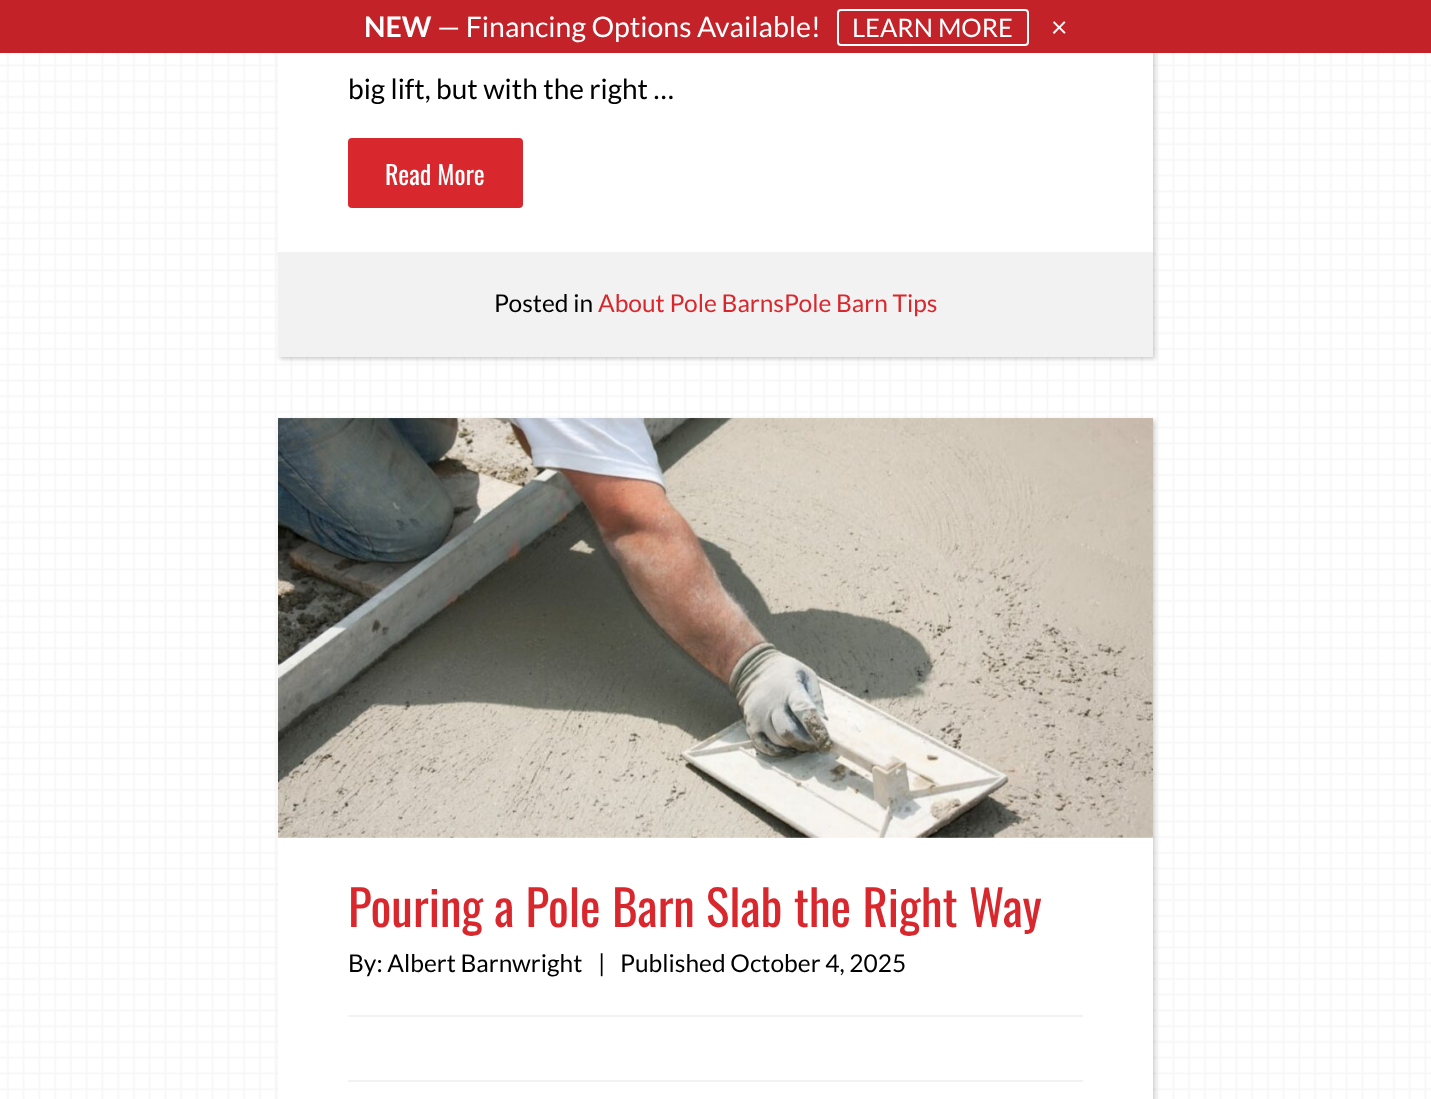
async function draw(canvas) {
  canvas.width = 1431;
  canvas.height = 1099;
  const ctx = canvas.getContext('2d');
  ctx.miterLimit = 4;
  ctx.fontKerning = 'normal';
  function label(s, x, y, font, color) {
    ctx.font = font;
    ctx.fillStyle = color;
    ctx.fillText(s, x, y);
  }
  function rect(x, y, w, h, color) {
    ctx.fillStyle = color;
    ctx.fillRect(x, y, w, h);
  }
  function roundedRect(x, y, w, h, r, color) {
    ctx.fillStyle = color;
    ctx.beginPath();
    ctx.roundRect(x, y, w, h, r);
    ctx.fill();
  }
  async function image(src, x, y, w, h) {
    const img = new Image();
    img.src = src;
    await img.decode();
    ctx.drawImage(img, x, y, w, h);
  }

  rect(0, 0, 1431, 1099, '#fff');
  await image('assets/img1.png', 0, 53, 1431, 1046);
  ctx.fillStyle = '#00000033';
  ctx.filter = 'blur(2px)';
  ctx.beginPath();
  ctx.rect(280, -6, 875, 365);
  ctx.fill();
  ctx.filter = 'none';
  rect(0, 0, 1431, 53, '#c32229');
  label('NEW', 364, 37, 'bold 28.4px Lato', '#fff');
  label('— Financing Options Available!', 437, 37, '28.4px Lato', '#fff');
  ctx.beginPath();
  ctx.roundRect(838, 10, 190, 35, 3);
  ctx.strokeStyle = '#fff';
  ctx.lineWidth = 2;
  ctx.stroke();
  label('LEARN MORE', 852, 37, '25.5px Lato', '#fff');
  label('×', 1051, 37, '28.4px Lato', '#fff');
  rect(278, 53, 875, 199, '#fff');
  label('big lift, but with the right …', 348, 99, '28px Lato', '#000');
  roundedRect(348, 138, 175, 70, 4, '#d9272e');
  label('Read More', 385, 185, '26px Oswald', '#fff');
  rect(278, 252, 875, 105, '#f2f2f2');
  label('Posted in', 494, 312, '24.5px Lato', '#000');
  label('About Pole BarnsPole Barn Tips', 598, 312, '24.5px Lato', '#d9272e');
  ctx.fillStyle = '#00000033';
  ctx.filter = 'blur(2px)';
  ctx.beginPath();
  ctx.rect(280, 420, 875, 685);
  ctx.fill();
  ctx.filter = 'none';
  rect(278, 418, 875, 681, '#fff');
  await image('assets/img2.png', 278, 418, 875, 420);
  label('Pouring a Pole Barn Slab the Right Way', 348, 927, '49px Oswald', '#d9272e');
  label('By: Albert Barnwright', 348, 972, '24.5px Lato', '#000');
  label('|', 598, 972, '24.5px Lato', '#000');
  label('Published October 4, 2025', 620, 972, '24.5px Lato', '#000');
  rect(348, 1015, 735, 2, '#f2f2f2');
  rect(348, 1080, 735, 2, '#f2f2f2');
}

draw(document.querySelector('canvas'));
